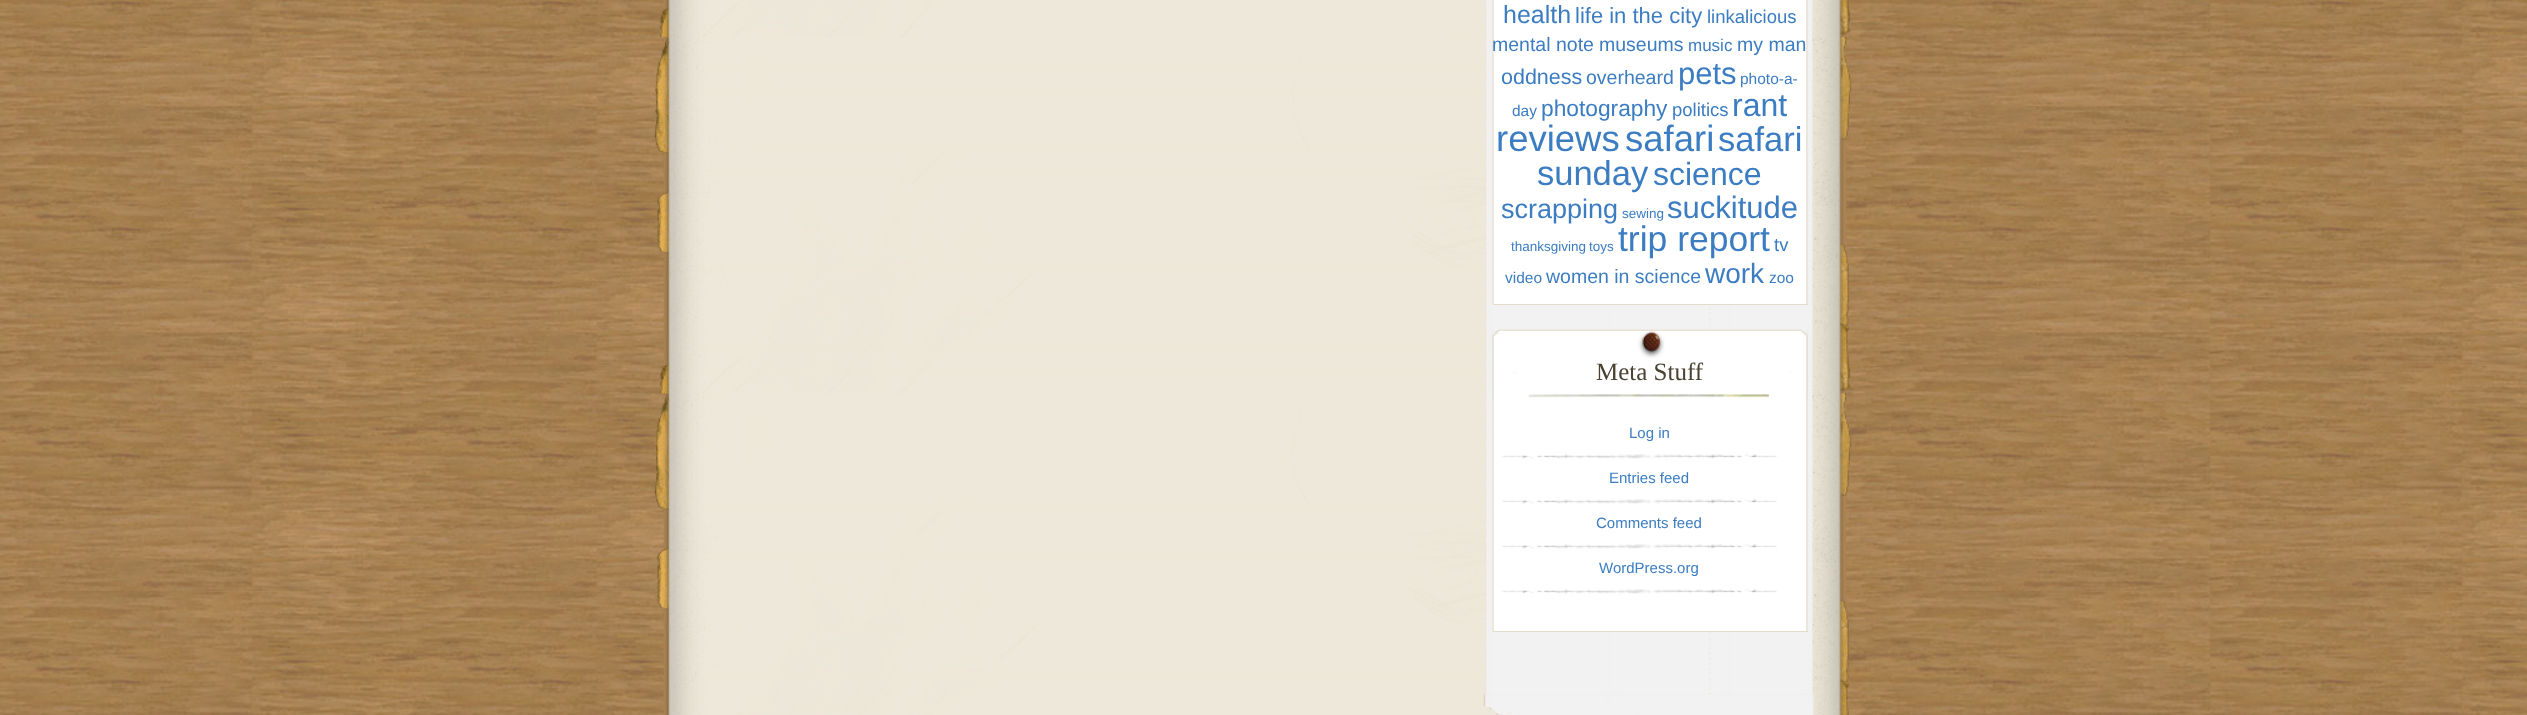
async function draw(canvas) {
  canvas.width = 2527;
  canvas.height = 715;
  const ctx = canvas.getContext('2d');
  ctx.miterLimit = 4;
  ctx.fontKerning = 'normal';
  function label(s, x, y, font, color) {
    ctx.font = font;
    ctx.fillStyle = color;
    ctx.fillText(s, x, y);
  }
  function rect(x, y, w, h, color) {
    ctx.fillStyle = color;
    ctx.fillRect(x, y, w, h);
  }
  async function image(src, x, y, w, h) {
    const img = new Image();
    img.src = src;
    await img.decode();
    ctx.drawImage(img, x, y, w, h);
  }

  rect(0, 0, 2527, 715, '#fff');
  await image('assets/img1.png', 0, 0, 2527, 715);
  await image('assets/img2.png', 654, 0, 1199, 715);
  await image('assets/img3.png', 1485, 0, 328, 695);
  await image('assets/img4.png', 1492, 0, 316, 305);
  rect(1493, 304, 315, 1, '#e3dccb');
  label('health', 1503, 23, '25px Liberation Sans', '#3c7dc2');
  label('life in the city', 1575, 23, '22px Liberation Sans', '#3c7dc2');
  label('linkalicious', 1707, 23, '18.5px Liberation Sans', '#3c7dc2');
  label('mental note', 1492, 51, '19.5px Liberation Sans', '#3c7dc2');
  label('museums', 1599, 51, '19.5px Liberation Sans', '#3c7dc2');
  label('music', 1688, 51, '17px Liberation Sans', '#3c7dc2');
  label('my man', 1737, 51, '19.5px Liberation Sans', '#3c7dc2');
  label('oddness', 1501, 84, '21.5px Liberation Sans', '#3c7dc2');
  label('overheard', 1586, 84, '19.5px Liberation Sans', '#3c7dc2');
  label('pets', 1678, 84, '31px Liberation Sans', '#3c7dc2');
  label('photo-a-', 1740, 84, '15.5px Liberation Sans', '#3c7dc2');
  label('day', 1512, 116, '15.5px Liberation Sans', '#3c7dc2');
  label('photography', 1541, 116, '22.75px Liberation Sans', '#3c7dc2');
  label('politics', 1672, 116, '18.5px Liberation Sans', '#3c7dc2');
  label('rant', 1732, 116, '32px Liberation Sans', '#3c7dc2');
  label('reviews', 1496, 151, '36.5px Liberation Sans', '#3c7dc2');
  label('safari', 1625, 151, '36.5px Liberation Sans', '#3c7dc2');
  label('safari', 1718, 151, '34.5px Liberation Sans', '#3c7dc2');
  label('sunday', 1537, 185, '34.5px Liberation Sans', '#3c7dc2');
  label('science', 1653, 185, '32px Liberation Sans', '#3c7dc2');
  label('scrapping', 1501, 218, '27px Liberation Sans', '#3c7dc2');
  label('sewing', 1622, 218, '13.5px Liberation Sans', '#3c7dc2');
  label('suckitude', 1667, 218, '31px Liberation Sans', '#3c7dc2');
  label('thanksgiving', 1511, 251, '13.5px Liberation Sans', '#3c7dc2');
  label('toys', 1589, 251, '13.5px Liberation Sans', '#3c7dc2');
  label('trip report', 1618, 251, '35.5px Liberation Sans', '#3c7dc2');
  label('tv', 1774, 251, '18.5px Liberation Sans', '#3c7dc2');
  label('video', 1505, 283, '15.5px Liberation Sans', '#3c7dc2');
  label('women in science', 1546, 283, '19.5px Liberation Sans', '#3c7dc2');
  label('work', 1705, 283, '28px Liberation Sans', '#3c7dc2');
  label('zoo', 1769, 283, '15.5px Liberation Sans', '#3c7dc2');
  await image('assets/img5.png', 1492, 329, 316, 303);
  rect(1493, 631, 315, 1, '#e3dccb');
  await image('assets/img6.png', 1492, 329, 316, 71);
  label('Meta Stuff', 1596, 380, '25px Liberation Serif', '#4a4131');
  await image('assets/img7.png', 1502, 454, 275, 5);
  label('Log in', 1629, 438, '15px Liberation Sans', '#3c7dc2');
  await image('assets/img7.png', 1502, 499, 275, 5);
  label('Entries feed', 1609, 483, '15px Liberation Sans', '#3c7dc2');
  await image('assets/img7.png', 1502, 544, 275, 5);
  label('Comments feed', 1596, 528, '15px Liberation Sans', '#3c7dc2');
  await image('assets/img7.png', 1502, 589, 275, 5);
  label('WordPress.org', 1599, 573, '15px Liberation Sans', '#3c7dc2');
  await image('assets/img8.png', 1483, 694, 331, 21);
}

draw(document.querySelector('canvas'));
